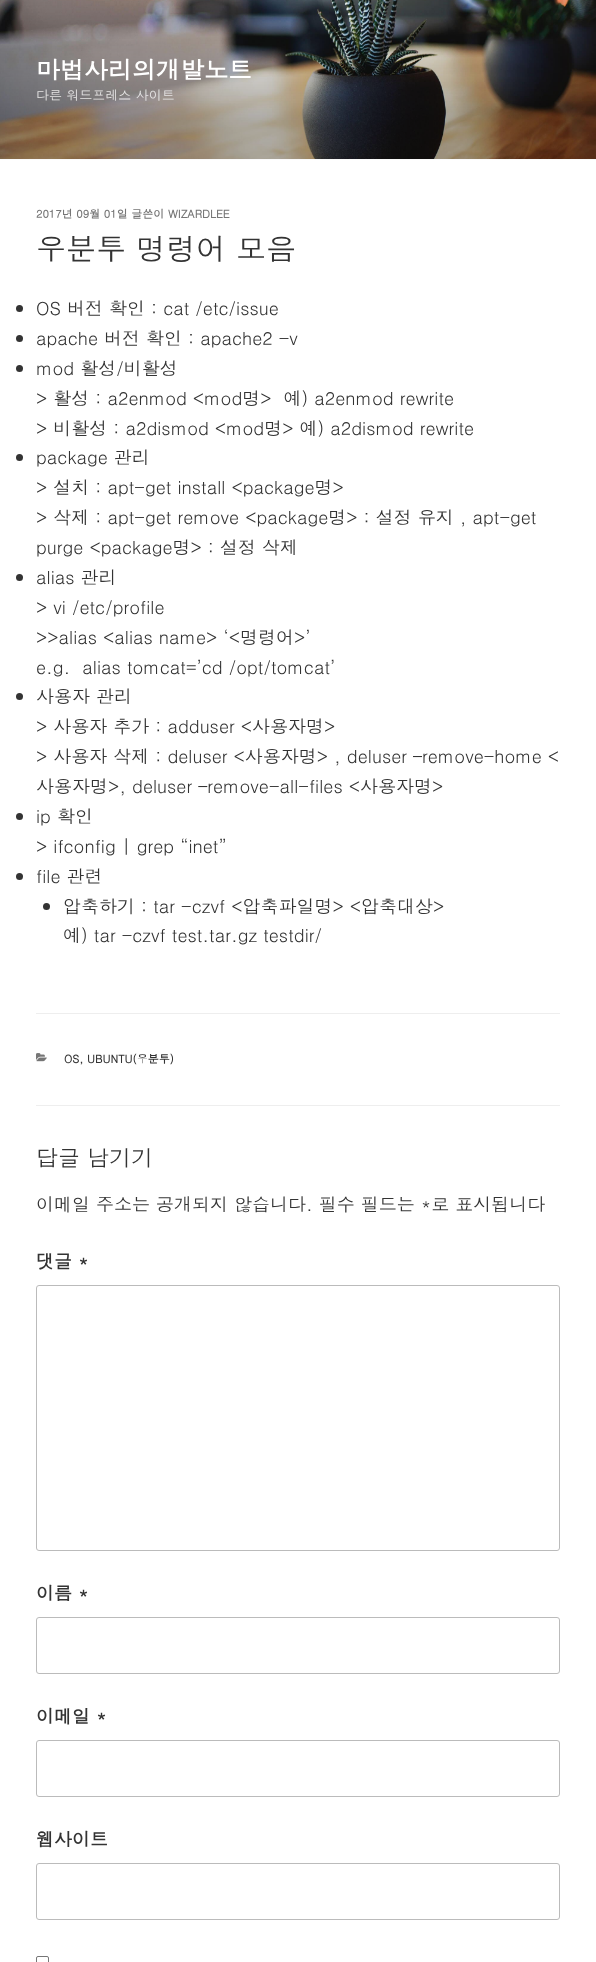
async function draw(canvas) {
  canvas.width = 596;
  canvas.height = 1962;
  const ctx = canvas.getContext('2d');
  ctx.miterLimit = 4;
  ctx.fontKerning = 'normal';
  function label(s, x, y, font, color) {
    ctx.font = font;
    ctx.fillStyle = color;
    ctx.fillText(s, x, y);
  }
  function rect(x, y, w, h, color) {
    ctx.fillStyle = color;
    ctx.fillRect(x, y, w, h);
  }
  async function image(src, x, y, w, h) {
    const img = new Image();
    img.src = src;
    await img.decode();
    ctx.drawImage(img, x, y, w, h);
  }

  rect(0, 0, 596, 1962, '#fff');
  rect(0, 159, 596, 1, '#fafafa');
  await image('assets/img1.png', 0, 0, 596, 159);
  label('마법사리의개발노트', 36, 79, 'bold 24px Dotum', '#fff');
  label('다른 워드프레스 사이트', 36, 100, '13px Dotum', '#e6e5e5');
  label('2017년 09월 01일 글쓴이 WIZARDLEE', 36, 218, 'bold 11px Dotum', '#767676');
  label('우분투 명령어 모음', 36, 260, '30px Dotum', '#333');
  ctx.beginPath();
  ctx.arc(19.5, 308.5, 3.5, 0, 2 * Math.PI);
  ctx.fill();
  label('OS 버전 확인 : cat /etc/issue', 36, 315, '18px Dotum', '#333');
  ctx.beginPath();
  ctx.arc(19.5, 338.5, 3.5, 0, 2 * Math.PI);
  ctx.fill();
  label('apache 버전 확인 : apache2 -v', 36, 345, '18px Dotum', '#333');
  ctx.beginPath();
  ctx.arc(19.5, 368.5, 3.5, 0, 2 * Math.PI);
  ctx.fill();
  label('mod 활성/비활성', 36, 375, '18px Dotum', '#333');
  label('> 활성 : a2enmod <mod명>  예) a2enmod rewrite', 36, 405, '18px Dotum', '#333');
  label('> 비활성 : a2dismod <mod명> 예) a2dismod rewrite', 36, 435, '18px Dotum', '#333');
  ctx.beginPath();
  ctx.arc(19.5, 457.5, 3.5, 0, 2 * Math.PI);
  ctx.fill();
  label('package 관리', 36, 464, '18px Dotum', '#333');
  label('> 설치 : apt-get install <package명>', 36, 494, '18px Dotum', '#333');
  label('> 삭제 : apt-get remove <package명> : 설정 유지 , apt-get', 36, 524, '18px Dotum', '#333');
  label('purge <package명> : 설정 삭제', 36, 554, '18px Dotum', '#333');
  ctx.beginPath();
  ctx.arc(19.5, 577.5, 3.5, 0, 2 * Math.PI);
  ctx.fill();
  label('alias 관리', 36, 584, '18px Dotum', '#333');
  label('> vi /etc/profile', 36, 614, '18px Dotum', '#333');
  label('>>alias <alias name> ‘<명령어>’', 36, 644, '18px Dotum', '#333');
  label('e.g.  alias tomcat=’cd /opt/tomcat’', 36, 674, '18px Dotum', '#333');
  ctx.beginPath();
  ctx.arc(19.5, 696.5, 3.5, 0, 2 * Math.PI);
  ctx.fill();
  label('사용자 관리', 36, 703, '18px Dotum', '#333');
  label('> 사용자 추가 : adduser <사용자명>', 36, 733, '18px Dotum', '#333');
  label('> 사용자 삭제 : deluser <사용자명> , deluser –remove-home <', 36, 763, '18px Dotum', '#333');
  label('사용자명>, deluser –remove-all-files <사용자명>', 36, 793, '18px Dotum', '#333');
  ctx.beginPath();
  ctx.arc(19.5, 816.5, 3.5, 0, 2 * Math.PI);
  ctx.fill();
  label('ip 확인', 36, 823, '18px Dotum', '#333');
  label('> ifconfig | grep “inet”', 36, 853, '18px Dotum', '#333');
  ctx.beginPath();
  ctx.arc(19.5, 876.5, 3.5, 0, 2 * Math.PI);
  ctx.fill();
  label('file 관련', 36, 883, '18px Dotum', '#333');
  ctx.beginPath();
  ctx.arc(46.5, 906.5, 3.5, 0, 2 * Math.PI);
  ctx.fill();
  label('압축하기 : tar -czvf <압축파일명> <압축대상>', 63, 913, '18px Dotum', '#333');
  label('예) tar -czvf test.tar.gz testdir/', 63, 942, '18px Dotum', '#333');
  rect(36, 1013, 524, 1, '#eee');
  rect(36, 1105, 524, 1, '#eee');
  await image('assets/img2.png', 36, 1053, 11, 9);
  label('OS, UBUNTU(우분투)', 64, 1063, 'bold 11px Dotum', '#333');
  label('답글 남기기', 36, 1166, '22px Dotum', '#333');
  label('이메일 주소는 공개되지 않습니다. 필수 필드는 *로 표시됩니다', 36, 1211, '18px Dotum', '#333');
  label('댓글 *', 36, 1268, 'bold 18px Dotum', '#333');
  ctx.beginPath();
  ctx.roundRect(36.5, 1285.5, 523, 265, 2.5);
  ctx.strokeStyle = '#bbb';
  ctx.stroke();
  label('이름 *', 36, 1600, 'bold 18px Dotum', '#333');
  ctx.beginPath();
  ctx.roundRect(36.5, 1617.5, 523, 56, 2.5);
  ctx.stroke();
  label('이메일 *', 36, 1723, 'bold 18px Dotum', '#333');
  ctx.beginPath();
  ctx.roundRect(36.5, 1740.5, 523, 56, 2.5);
  ctx.stroke();
  label('웹사이트', 36, 1846, 'bold 18px Dotum', '#333');
  ctx.beginPath();
  ctx.roundRect(36.5, 1863.5, 523, 56, 2.5);
  ctx.stroke();
  ctx.beginPath();
  ctx.roundRect(36.5, 1956.5, 12, 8, 1.5);
  ctx.strokeStyle = '#767676';
  ctx.stroke();
}

draw(document.querySelector('canvas'));
